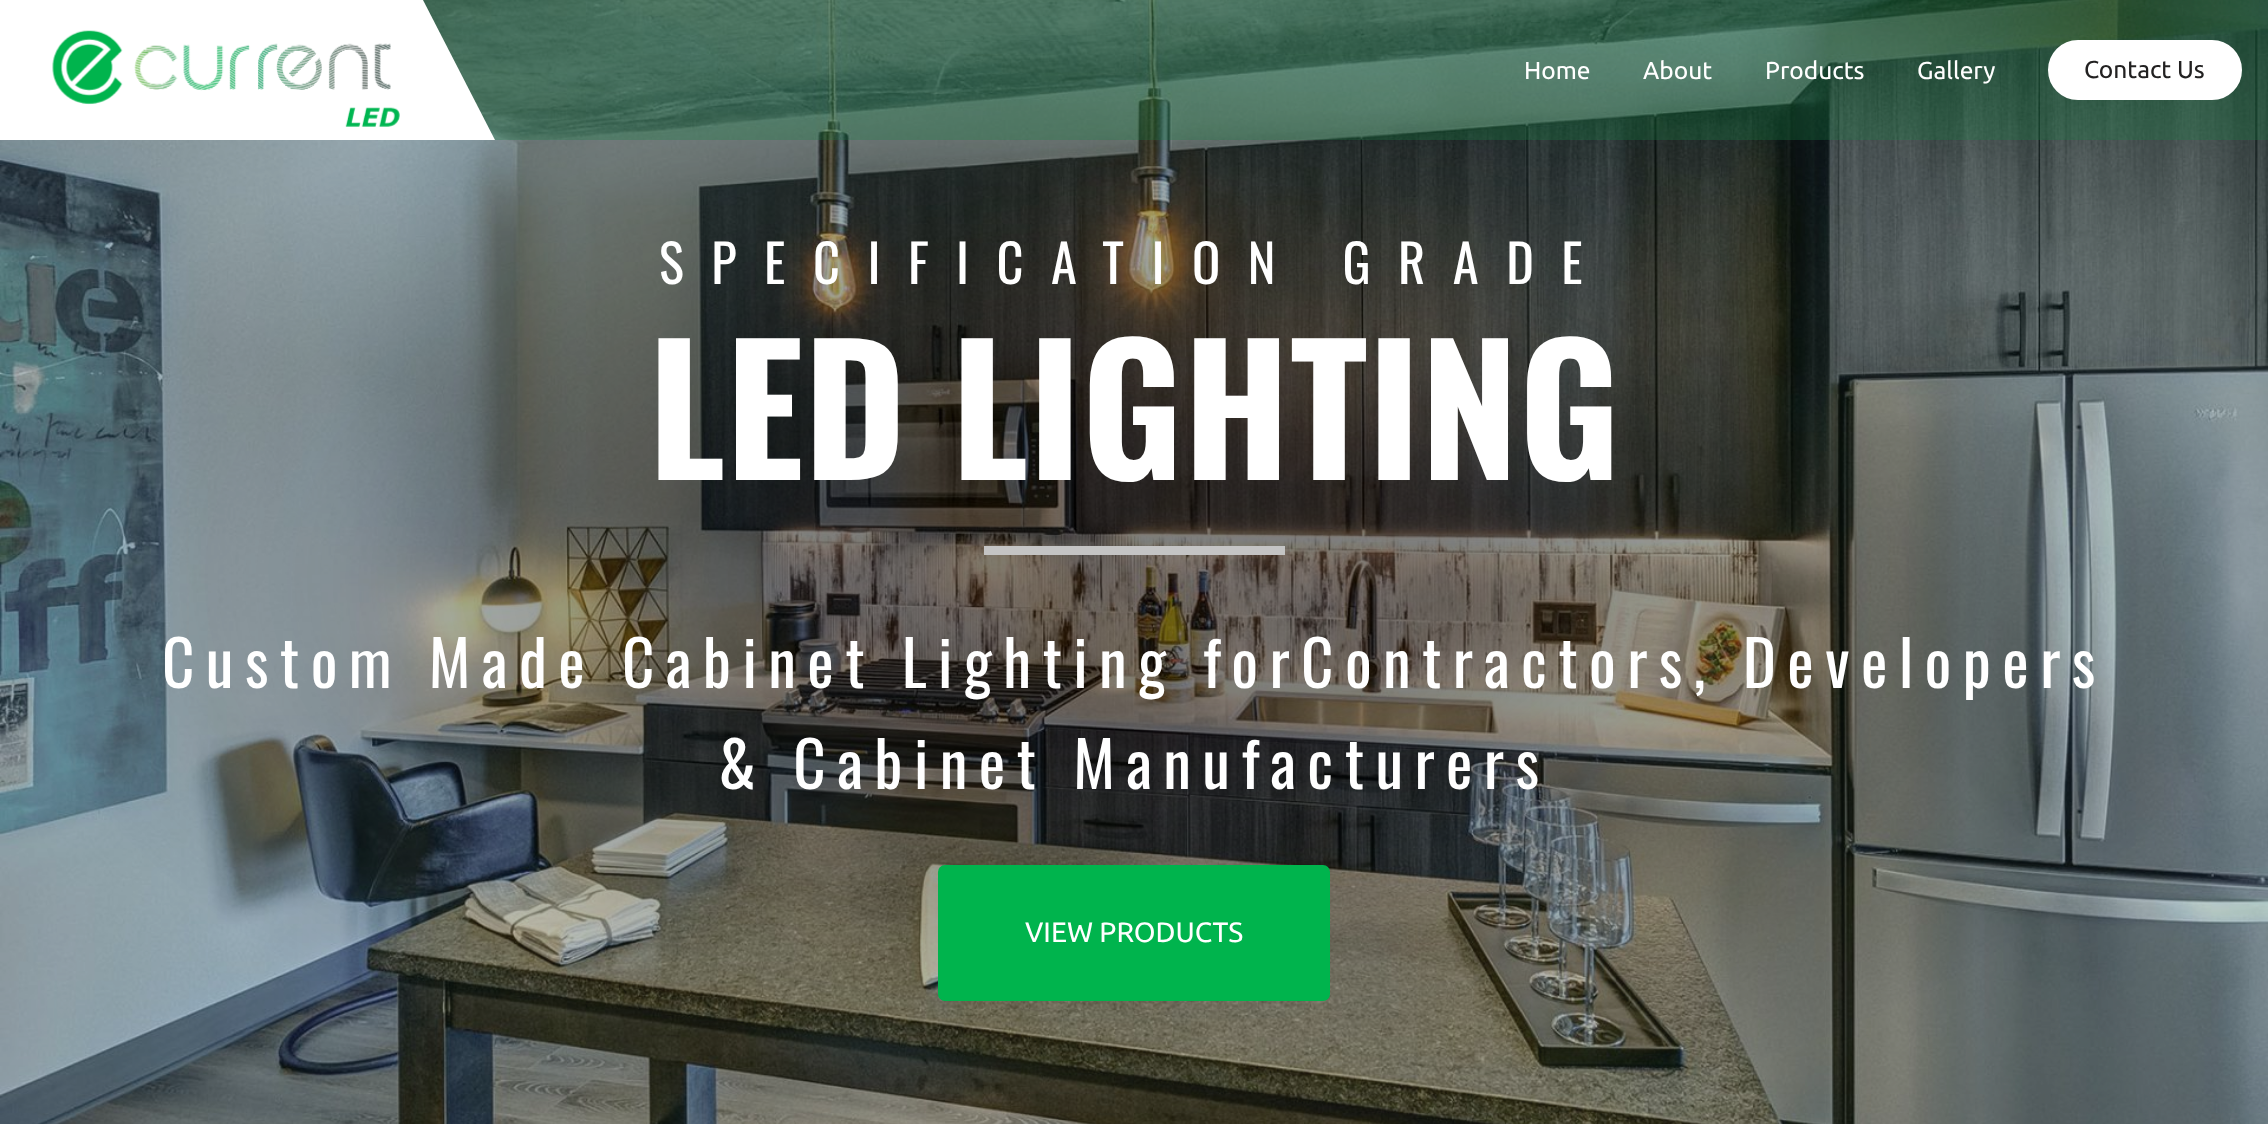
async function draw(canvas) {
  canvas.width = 2268;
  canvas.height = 1124;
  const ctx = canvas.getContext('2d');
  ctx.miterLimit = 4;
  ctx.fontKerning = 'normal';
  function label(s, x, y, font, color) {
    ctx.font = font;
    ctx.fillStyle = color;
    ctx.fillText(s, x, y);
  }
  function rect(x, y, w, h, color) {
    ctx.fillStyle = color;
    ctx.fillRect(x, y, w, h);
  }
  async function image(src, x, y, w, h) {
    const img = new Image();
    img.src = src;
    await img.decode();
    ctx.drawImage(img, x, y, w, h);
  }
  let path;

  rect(0, 0, 2268, 1124, '#fff');
  await image('assets/img2.png', 0, 0, 2268, 1124);
  rect(423, 0, 1845, 140, '#1381424d');
  ctx.fillStyle = '#fff';
  path = new Path2D('M0 0V140H495L423 0Z');
  ctx.fill(path);
  await image('assets/img1.png', 52, 30, 348, 97);
  label('Home', 1524, 79, '24.5px Ubuntu', '#fff');
  label('About', 1643, 79, '24.5px Ubuntu', '#fff');
  label('Products', 1765, 79, '24.5px Ubuntu', '#fff');
  label('Gallery', 1917, 79, '24.5px Ubuntu', '#fff');
  ctx.beginPath();
  ctx.roundRect(2049, 41, 192, 58, 29);
  ctx.fill();
  ctx.strokeStyle = '#fff';
  ctx.lineWidth = 2;
  ctx.stroke();
  label('Contact Us', 2084, 78, '24.5px Ubuntu', '#222121');
  ctx.letterSpacing = '27.5px';
  label('SPECIFICATION GRADE', 659, 284, '52.5px Oswald', '#fff');
  ctx.letterSpacing = '0px';
  label('LED LIGHTING', 648, 480, 'bold 175px Oswald', '#fff');
  rect(984, 546, 301, 9, '#c4c4c4');
  ctx.letterSpacing = '11.38px';
  label('Custom Made Cabinet Lighting forContractors, Developers', 162, 688, '63px Oswald', '#fff');
  label('& Cabinet Manufacturers', 718, 789, '63px Oswald', '#fff');
  ctx.fillStyle = '#00b44d';
  ctx.beginPath();
  ctx.roundRect(939, 866, 390, 134, 6);
  ctx.fill();
  ctx.strokeStyle = '#00b44d';
  ctx.stroke();
  ctx.letterSpacing = '0px';
  label('VIEW PRODUCTS', 1025, 942, '28px Ubuntu', '#fff');
}

draw(document.querySelector('canvas'));
